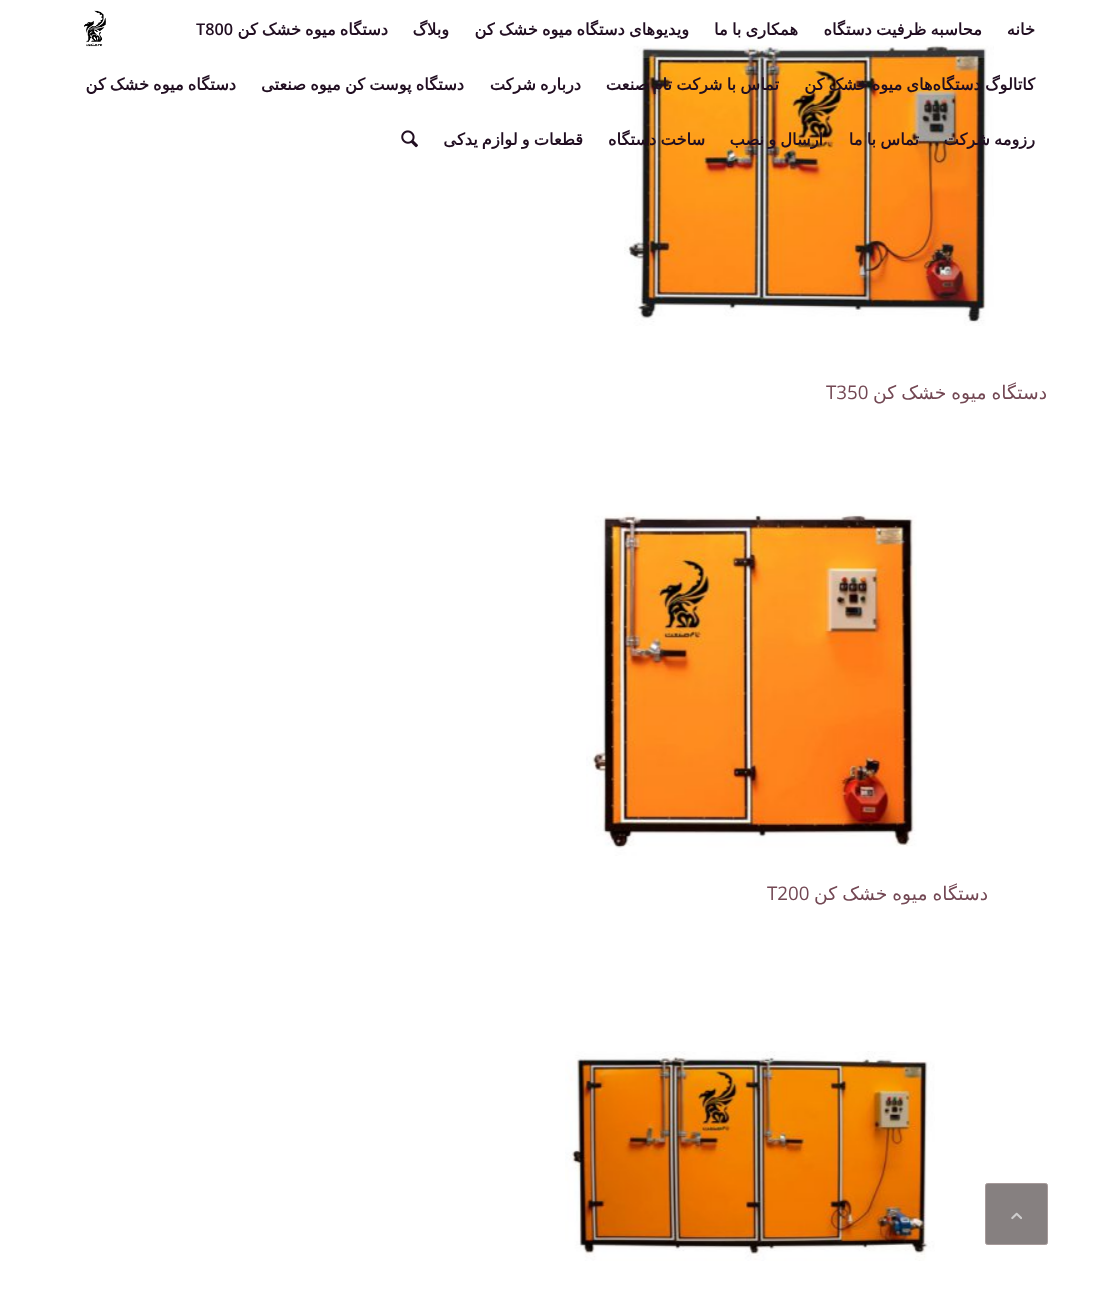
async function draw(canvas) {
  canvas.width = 1110;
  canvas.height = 1307;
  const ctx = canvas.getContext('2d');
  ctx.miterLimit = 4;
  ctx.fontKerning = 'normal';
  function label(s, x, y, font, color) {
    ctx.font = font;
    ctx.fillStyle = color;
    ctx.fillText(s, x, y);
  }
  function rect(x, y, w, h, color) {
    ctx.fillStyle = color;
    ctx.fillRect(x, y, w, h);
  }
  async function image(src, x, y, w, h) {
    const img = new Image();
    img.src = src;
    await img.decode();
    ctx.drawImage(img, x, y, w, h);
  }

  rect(0, 0, 1110, 1307, '#fff');
  await image('assets/img1.png', 84, 10, 22, 37);
  ctx.direction = 'rtl';
  label('خانه', 1035, 35, 'bold 16.25px DejaVu Sans', '#210e21');
  ctx.wordSpacing = '-1px';
  label('محاسبه ظرفیت دستگاه', 982, 35, 'bold 16.25px DejaVu Sans', '#210e21');
  label('همکاری با ما', 798, 35, 'bold 16.25px DejaVu Sans', '#210e21');
  label('ویدیوهای دستگاه میوه خشک کن', 689, 35, 'bold 16.25px DejaVu Sans', '#210e21');
  ctx.wordSpacing = '0px';
  label('وبلاگ', 449, 35, 'bold 16.25px DejaVu Sans', '#210e21');
  ctx.wordSpacing = '-1px';
  label('دستگاه میوه خشک کن', 388, 35, 'bold 16.25px DejaVu Sans', '#210e21');
  ctx.wordSpacing = '0px';
  ctx.direction = 'ltr';
  label('T800', 196, 35, '600 16.25px Open Sans', '#210e21');
  await image('assets/img3.png', 624, 45, 370, 281);
  ctx.wordSpacing = '-1px';
  ctx.direction = 'rtl';
  label('کاتالوگ دستگاه‌های میوه خشک کن', 1035, 90, 'bold 16.25px DejaVu Sans', '#210e21');
  label('تماس با شرکت تام صنعت', 779, 90, 'bold 16.25px DejaVu Sans', '#210e21');
  label('درباره شرکت', 581, 90, 'bold 16.25px DejaVu Sans', '#210e21');
  label('دستگاه پوست کن میوه صنعتی', 464, 90, 'bold 16.25px DejaVu Sans', '#210e21');
  label('دستگاه میوه خشک کن', 236, 90, 'bold 16.25px DejaVu Sans', '#210e21');
  label('رزومه شرکت', 1035, 145, 'bold 16.25px DejaVu Sans', '#210e21');
  label('تماس با ما', 919, 145, 'bold 16.25px DejaVu Sans', '#210e21');
  label('ارسال و نصب', 823, 145, 'bold 16.25px DejaVu Sans', '#210e21');
  label('ساخت دستگاه', 705, 145, 'bold 16.25px DejaVu Sans', '#210e21');
  label('قطعات و لوازم یدکی', 583, 145, 'bold 16.25px DejaVu Sans', '#210e21');
  await image('assets/img2.png', 401, 130, 17, 18);
  rect(642, 46, 343, 12, '#ffffff21');
  label('دستگاه میوه خشک کن', 1047, 399, '18.75px DejaVu Sans', '#734854');
  ctx.wordSpacing = '0px';
  ctx.direction = 'ltr';
  label('T350', 826, 399, '18.75px Open Sans', '#734854');
  await image('assets/img4.png', 586, 512, 331, 344);
  ctx.wordSpacing = '-1px';
  ctx.direction = 'rtl';
  label('دستگاه میوه خشک کن', 988, 900, '18.75px DejaVu Sans', '#734854');
  ctx.wordSpacing = '0px';
  ctx.direction = 'ltr';
  label('T200', 767, 900, '18.75px Open Sans', '#734854');
  await image('assets/img5.png', 565, 1051, 370, 210);
  ctx.fillStyle = '#868080';
  ctx.beginPath();
  ctx.roundRect(985.5, 1183.5, 62, 61, 2);
  ctx.fill();
  ctx.strokeStyle = '#a69a9a';
  ctx.stroke();
  await image('assets/img6.png', 1011, 1212, 11, 8);
}

draw(document.querySelector('canvas'));
